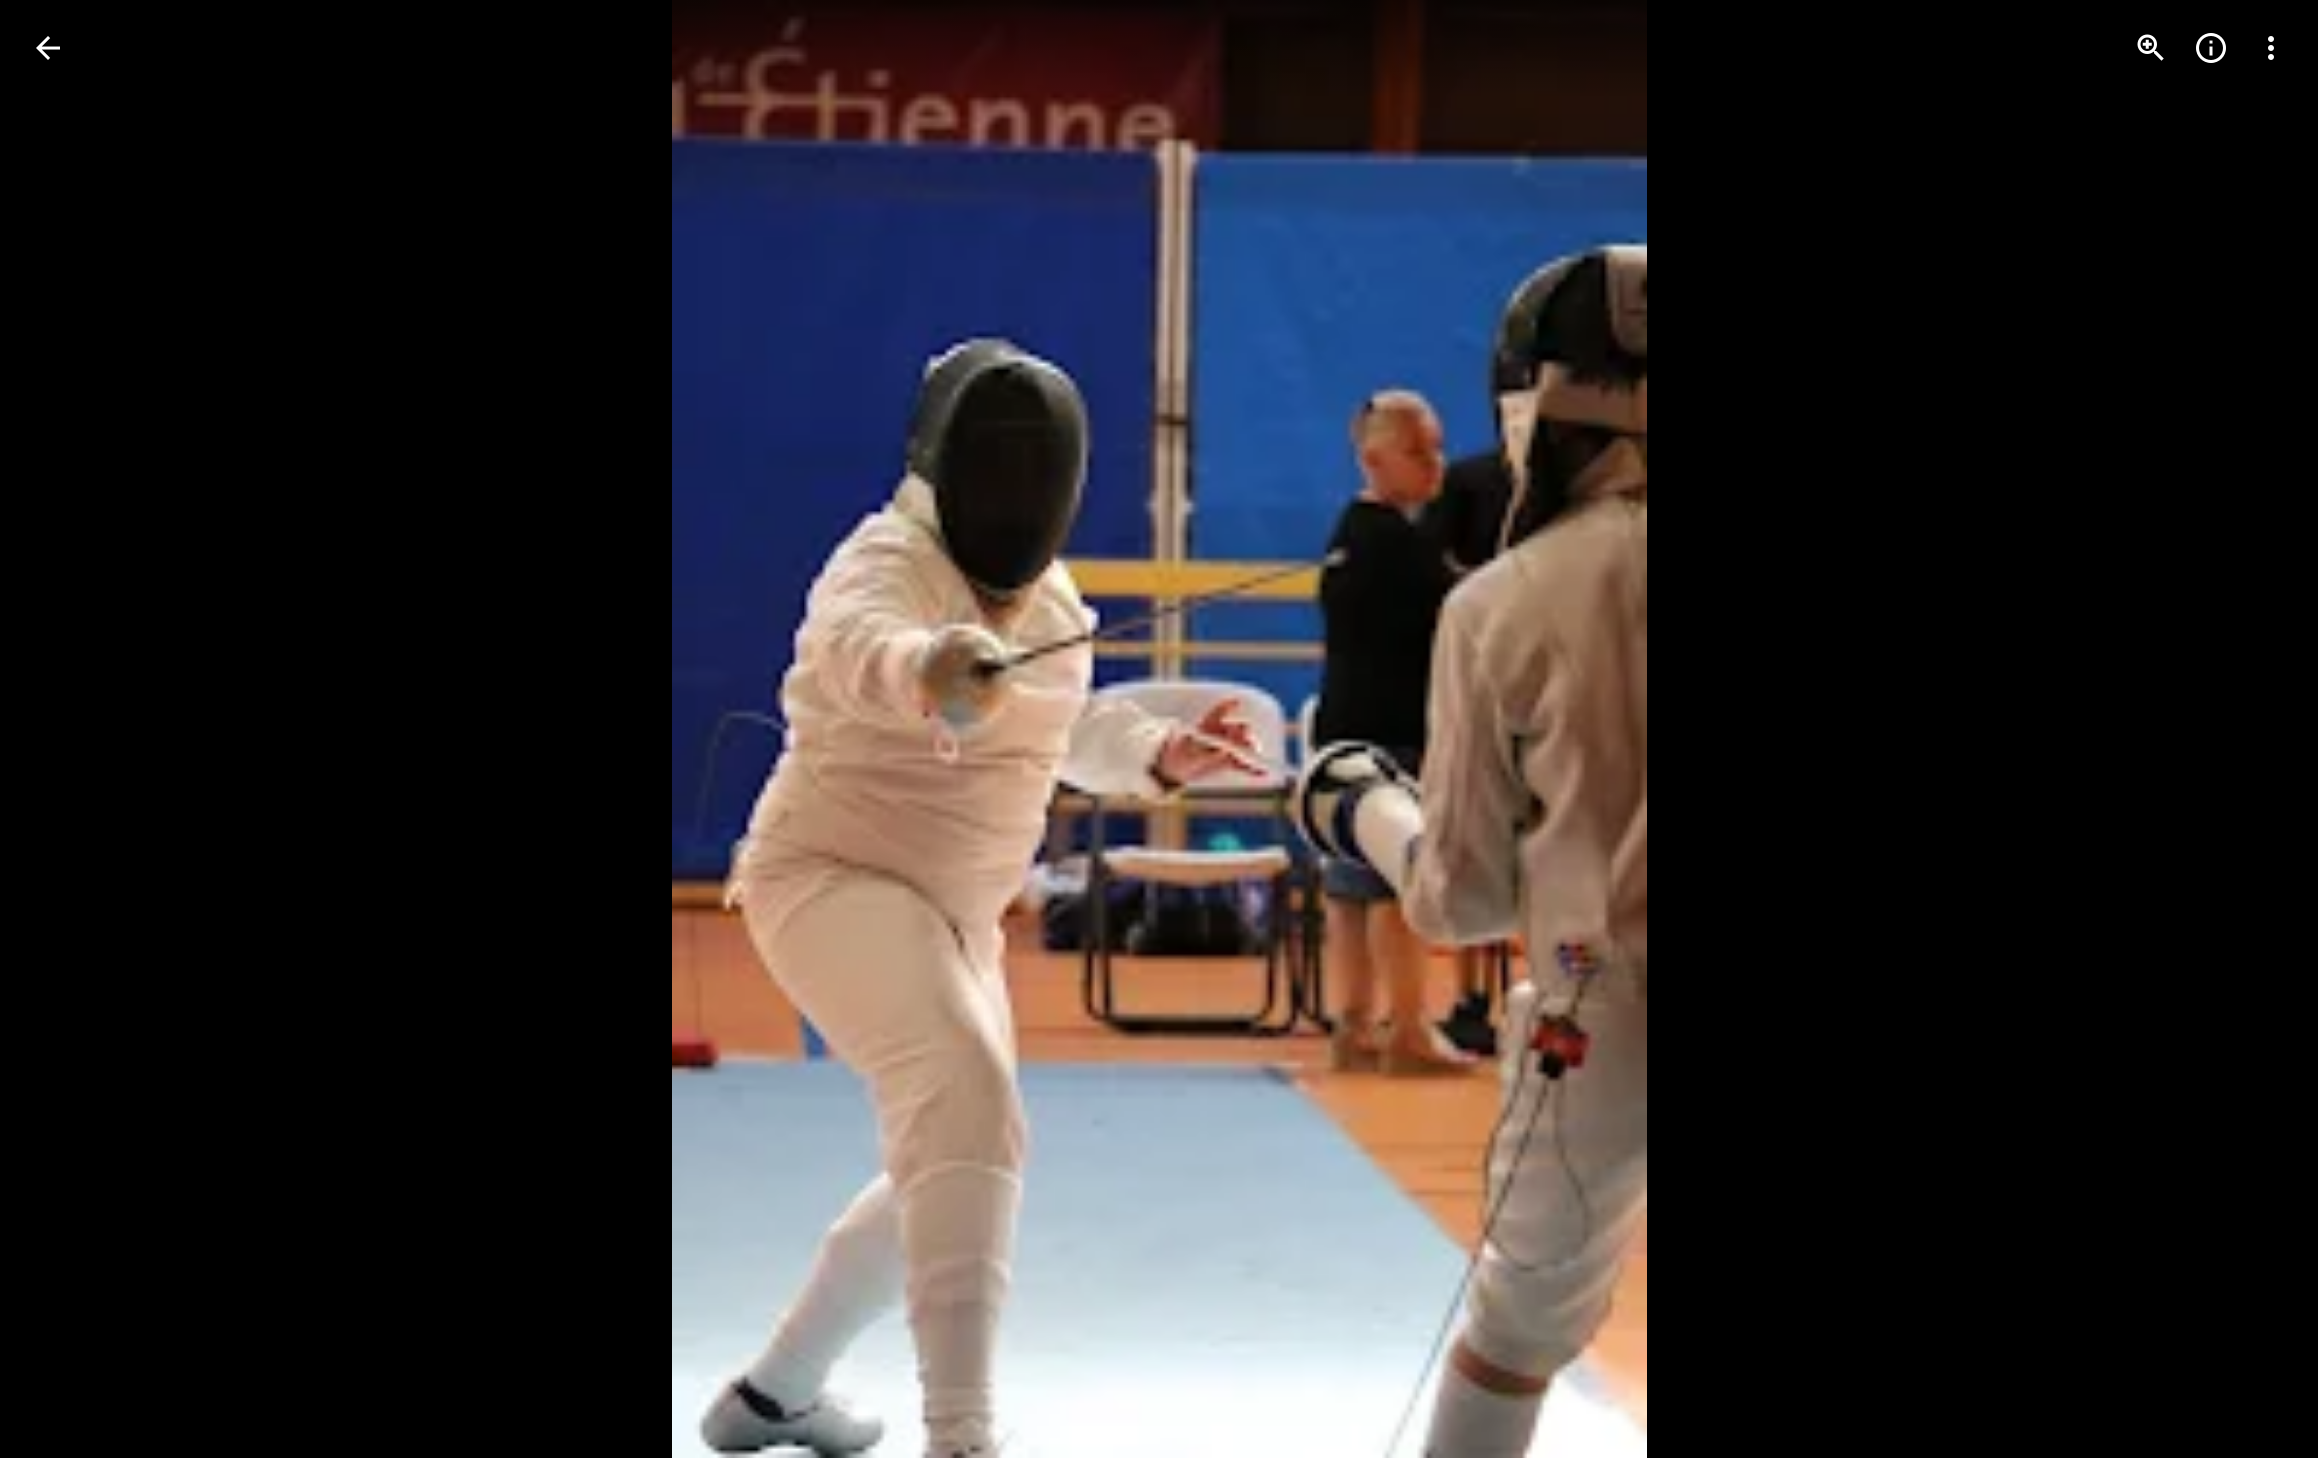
async function draw(canvas) {
  canvas.width = 2318;
  canvas.height = 1458;
  const ctx = canvas.getContext('2d');
  ctx.miterLimit = 4;
  ctx.fontKerning = 'normal';
  function rect(x, y, w, h, color) {
    ctx.fillStyle = color;
    ctx.fillRect(x, y, w, h);
  }
  async function image(src, x, y, w, h) {
    const img = new Image();
    img.src = src;
    await img.decode();
    ctx.drawImage(img, x, y, w, h);
  }
  let gradient;

  rect(0, 0, 2318, 1458, '#000');
  await image('assets/img5.png', 672, 0, 975, 1458);
  gradient = ctx.createLinearGradient(1160, 0, 1160, 96);
  gradient.addColorStop(0, '#00000099');
  gradient.addColorStop(1, '#00000000');
  ctx.fillStyle = gradient;
  ctx.fillRect(672, 0, 975, 93);
  await image('assets/img1.png', 36, 36, 24, 24);
  await image('assets/img2.png', 2137, 34, 27, 27);
  await image('assets/img3.png', 2196, 33, 30, 30);
  await image('assets/img4.png', 2268, 36, 6, 24);
}

draw(document.querySelector('canvas'));
